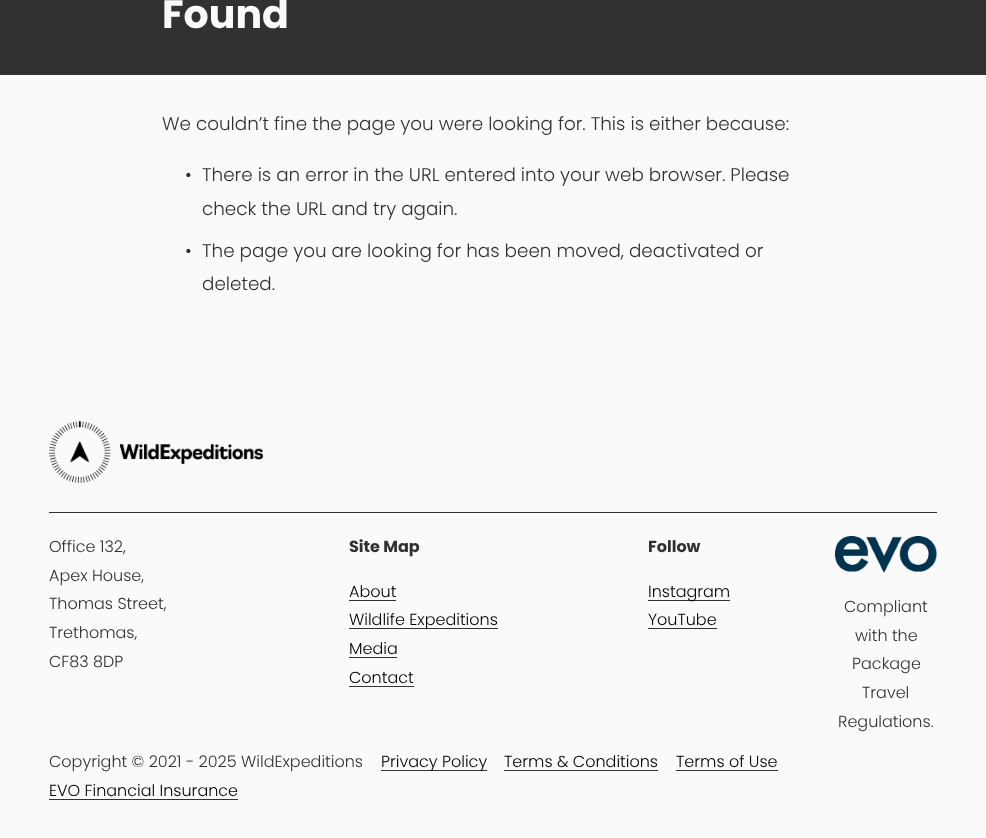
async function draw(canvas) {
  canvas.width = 986;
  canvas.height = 838;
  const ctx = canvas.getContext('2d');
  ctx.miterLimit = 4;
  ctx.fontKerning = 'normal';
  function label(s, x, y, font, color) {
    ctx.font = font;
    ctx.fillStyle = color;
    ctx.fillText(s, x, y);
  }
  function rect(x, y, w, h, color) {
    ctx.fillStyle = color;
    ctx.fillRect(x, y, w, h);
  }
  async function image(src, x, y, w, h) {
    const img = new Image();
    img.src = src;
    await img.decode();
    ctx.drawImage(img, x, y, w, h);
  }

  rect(0, 0, 986, 838, '#313131');
  label('Found', 162, 28, 'bold 39.5px Poppins', '#fafafa');
  rect(0, 75, 986, 763, '#fafafa');
  label('We couldn’t fine the page you were looking for. This is either because:', 162, 130, '300 18.35px Poppins', '#313131');
  label('•', 185, 181, '300 18.35px Poppins', '#313131');
  label('There is an error in the URL entered into your web browser. Please', 202, 181, '300 18.35px Poppins', '#313131');
  label('check the URL and try again.', 202, 215, '300 18.35px Poppins', '#313131');
  label('•', 185, 257, '300 18.35px Poppins', '#313131');
  label('The page you are looking for has been moved, deactivated or', 202, 257, '300 18.35px Poppins', '#313131');
  label('deleted.', 202, 290, '300 18.35px Poppins', '#313131');
  await image('assets/img1.png', 49, 421, 214, 62);
  rect(49, 512, 888, 1, '#313131');
  label('Office 132,', 49, 552, '300 16px Poppins', '#313131');
  label('Apex House,', 49, 581, '300 16px Poppins', '#313131');
  label('Thomas Street,', 49, 609, '300 16px Poppins', '#313131');
  label('Trethomas,', 49, 638, '300 16px Poppins', '#313131');
  label('CF83 8DP', 49, 667, '300 16px Poppins', '#313131');
  label('Site Map', 349, 552, 'bold 16px Poppins', '#313131');
  label('About', 349, 597, '300 16px Poppins', '#000');
  rect(349, 600, 47, 1, '#313131');
  rect(349, 628, 149, 1, '#313131');
  label('Wildlife Expeditions', 349, 625, '300 16px Poppins', '#000');
  label('Media', 349, 654, '300 16px Poppins', '#000');
  rect(349, 657, 48, 1, '#313131');
  label('Contact', 349, 683, '300 16px Poppins', '#000');
  rect(349, 686, 65, 1, '#313131');
  label('Follow', 648, 552, 'bold 16px Poppins', '#313131');
  rect(648, 600, 82, 1, '#313131');
  label('Instagram', 648, 597, '300 16px Poppins', '#000');
  label('YouTube', 648, 625, '300 16px Poppins', '#000');
  rect(648, 628, 69, 1, '#313131');
  await image('assets/img2.png', 835, 536, 102, 37);
  label('Compliant', 844, 612, '300 16px Poppins', '#313131');
  label('with the', 855, 641, '300 16px Poppins', '#313131');
  label('Package', 852, 669, '300 16px Poppins', '#313131');
  label('Travel', 862, 698, '300 16px Poppins', '#313131');
  label('Regulations.', 838, 727, '300 16px Poppins', '#313131');
  label('Copyright © 2021 - 2025 WildExpeditions', 49, 767, '300 16px Poppins', '#313131');
  rect(381, 770, 106, 1, '#313131');
  label('Privacy Policy', 381, 767, '300 16px Poppins', '#000');
  label('Terms & Conditions', 504, 767, '300 16px Poppins', '#000');
  rect(504, 770, 154, 1, '#313131');
  label('Terms of Use', 676, 767, '300 16px Poppins', '#000');
  rect(676, 770, 102, 1, '#313131');
  label('EVO Financial Insurance', 49, 796, '300 16px Poppins', '#000');
  rect(49, 799, 189, 1, '#313131');
}

draw(document.querySelector('canvas'));
